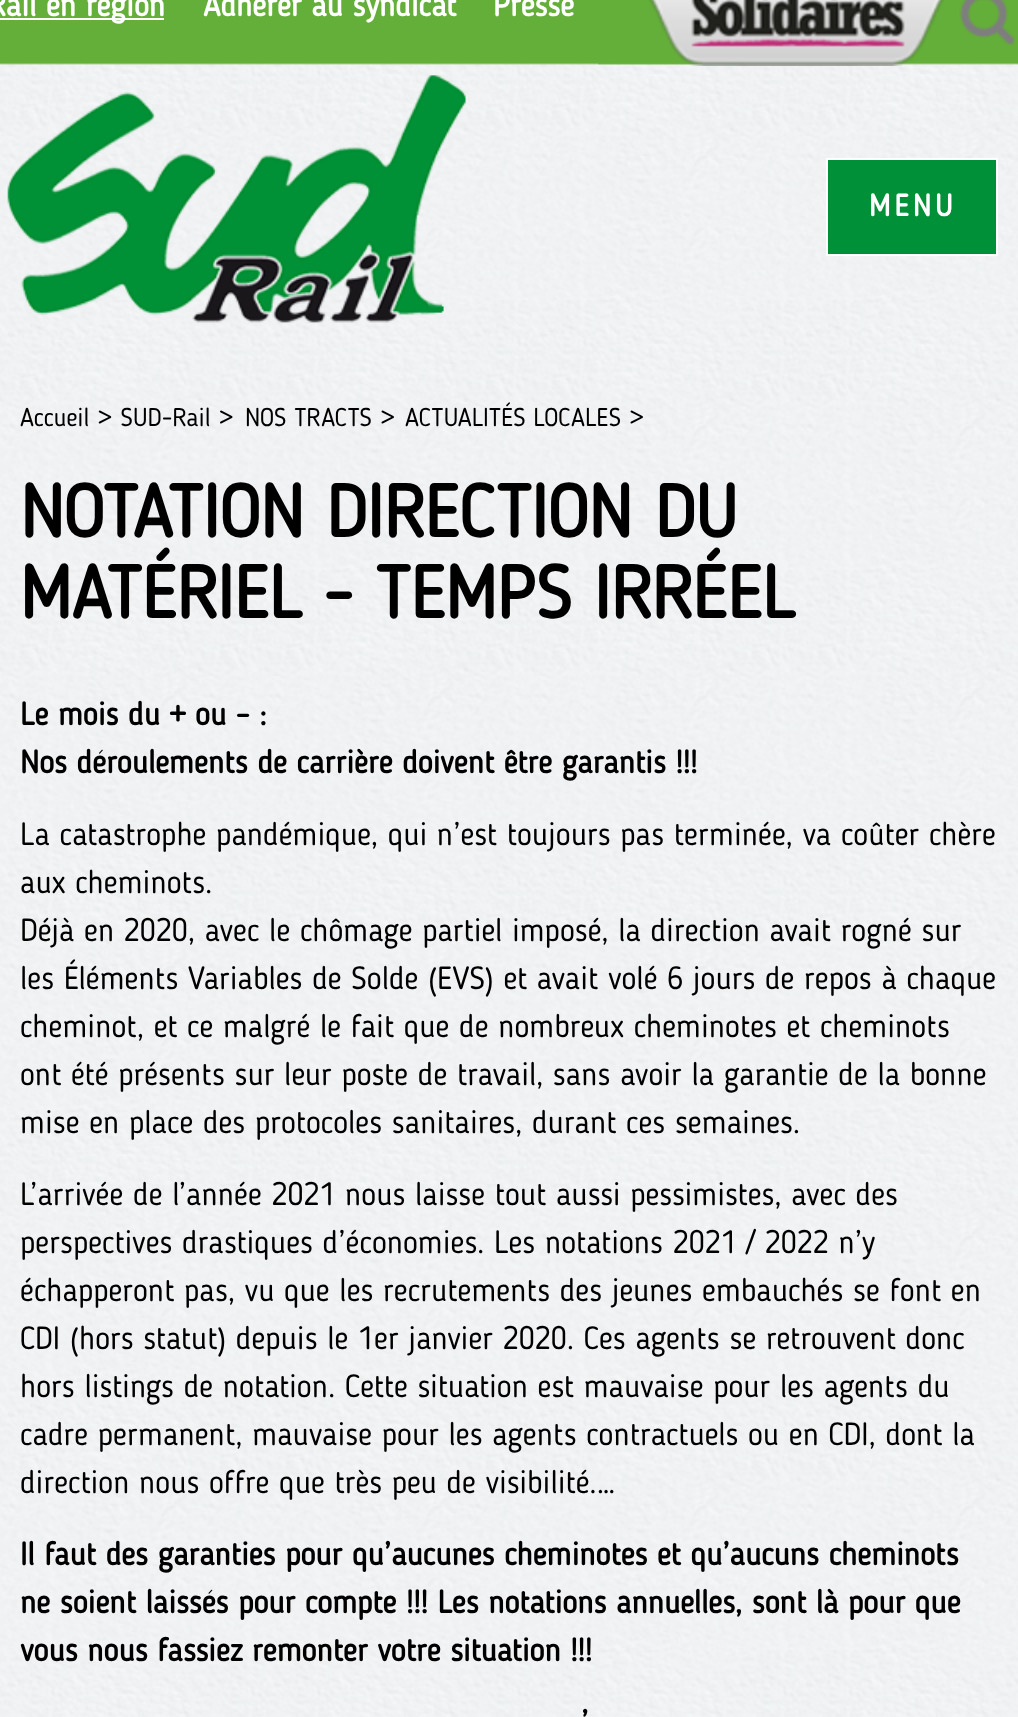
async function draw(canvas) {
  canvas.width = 1018;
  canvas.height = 1717;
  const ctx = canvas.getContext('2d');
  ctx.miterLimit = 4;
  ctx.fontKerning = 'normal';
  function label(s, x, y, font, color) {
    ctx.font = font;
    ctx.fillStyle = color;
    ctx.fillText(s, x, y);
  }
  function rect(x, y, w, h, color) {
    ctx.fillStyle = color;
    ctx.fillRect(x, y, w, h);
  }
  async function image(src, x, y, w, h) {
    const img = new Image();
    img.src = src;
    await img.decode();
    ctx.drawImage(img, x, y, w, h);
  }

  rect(0, 0, 1018, 1717, '#fff');
  await image('assets/img1.png', 0, 63, 1018, 1654);
  await image('assets/img2.png', 0, 0, 1018, 65);
  rect(0, 18, 164, 2, '#fff');
  label('Rail en région', -12, 16, 'bold 32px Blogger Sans', '#fff');
  label('Adhérer au syndicat', 203, 16, 'bold 32px Blogger Sans', '#fff');
  label('Presse', 493, 16, 'bold 32px Blogger Sans', '#fff');
  await image('assets/img3.png', 598, 0, 346, 66);
  await image('assets/img4.png', 959, 0, 56, 45);
  await image('assets/img5.png', 7, 75, 459, 248);
  ctx.fillStyle = '#009037';
  ctx.beginPath();
  ctx.rect(827, 159, 170, 96);
  ctx.fill();
  ctx.strokeStyle = '#fff';
  ctx.lineWidth = 2;
  ctx.stroke();
  ctx.letterSpacing = '4px';
  label('MENU', 869, 216, 'bold 30.5px Blogger Sans', '#fff');
  ctx.letterSpacing = '0px';
  label('Accueil > SUD-Rail >', 20, 426, '25.5px Blogger Sans', '#000');
  label('NOS TRACTS >', 245, 426, '25.5px Blogger Sans', '#000');
  label('ACTUALITÉS LOCALES >', 405, 426, '25.5px Blogger Sans', '#000');
  label('NOTATION DIRECTION DU', 20, 537, 'bold 73.6px Blogger Sans', '#000');
  label('MATÉRIEL - TEMPS IRRÉEL', 20, 618, 'bold 73.6px Blogger Sans', '#000');
  label('Le mois du + ou – :', 20, 725, 'bold 32px Blogger Sans', '#000');
  label('Nos déroulements de carrière doivent être garantis !!!', 20, 773, 'bold 32px Blogger Sans', '#000');
  label('La catastrophe pandémique, qui n’est toujours pas terminée, va coûter chère', 20, 845, '32px Blogger Sans', '#000');
  label('aux cheminots.', 20, 893, '32px Blogger Sans', '#000');
  label('Déjà en 2020, avec le chômage partiel imposé, la direction avait rogné sur', 20, 941, '32px Blogger Sans', '#000');
  label('les Éléments Variables de Solde (EVS) et avait volé 6 jours de repos à chaque', 20, 989, '32px Blogger Sans', '#000');
  label('cheminot, et ce malgré le fait que de nombreux cheminotes et cheminots', 20, 1037, '32px Blogger Sans', '#000');
  label('ont été présents sur leur poste de travail, sans avoir la garantie de la bonne', 20, 1085, '32px Blogger Sans', '#000');
  label('mise en place des protocoles sanitaires, durant ces semaines.', 20, 1133, '32px Blogger Sans', '#000');
  label('L’arrivée de l’année 2021 nous laisse tout aussi pessimistes, avec des', 20, 1205, '32px Blogger Sans', '#000');
  label('perspectives drastiques d’économies. Les notations 2021 / 2022 n’y', 20, 1253, '32px Blogger Sans', '#000');
  label('échapperont pas, vu que les recrutements des jeunes embauchés se font en', 20, 1301, '32px Blogger Sans', '#000');
  label('CDI (hors statut) depuis le 1er janvier 2020. Ces agents se retrouvent donc', 20, 1349, '32px Blogger Sans', '#000');
  label('hors listings de notation. Cette situation est mauvaise pour les agents du', 20, 1397, '32px Blogger Sans', '#000');
  label('cadre permanent, mauvaise pour les agents contractuels ou en CDI, dont la', 20, 1445, '32px Blogger Sans', '#000');
  label('direction nous offre que très peu de visibilité.…', 20, 1493, '32px Blogger Sans', '#000');
  label('Il faut des garanties pour qu’aucunes cheminotes et qu’aucuns cheminots', 20, 1565, 'bold 32px Blogger Sans', '#000');
  label('ne soient laissés pour compte !!! Les notations annuelles, sont là pour que', 20, 1613, 'bold 32px Blogger Sans', '#000');
  label('vous nous fassiez remonter votre situation !!!', 20, 1661, 'bold 32px Blogger Sans', '#000');
  label('’', 581, 1733, 'bold 32px Blogger Sans', '#000');
}

draw(document.querySelector('canvas'));
